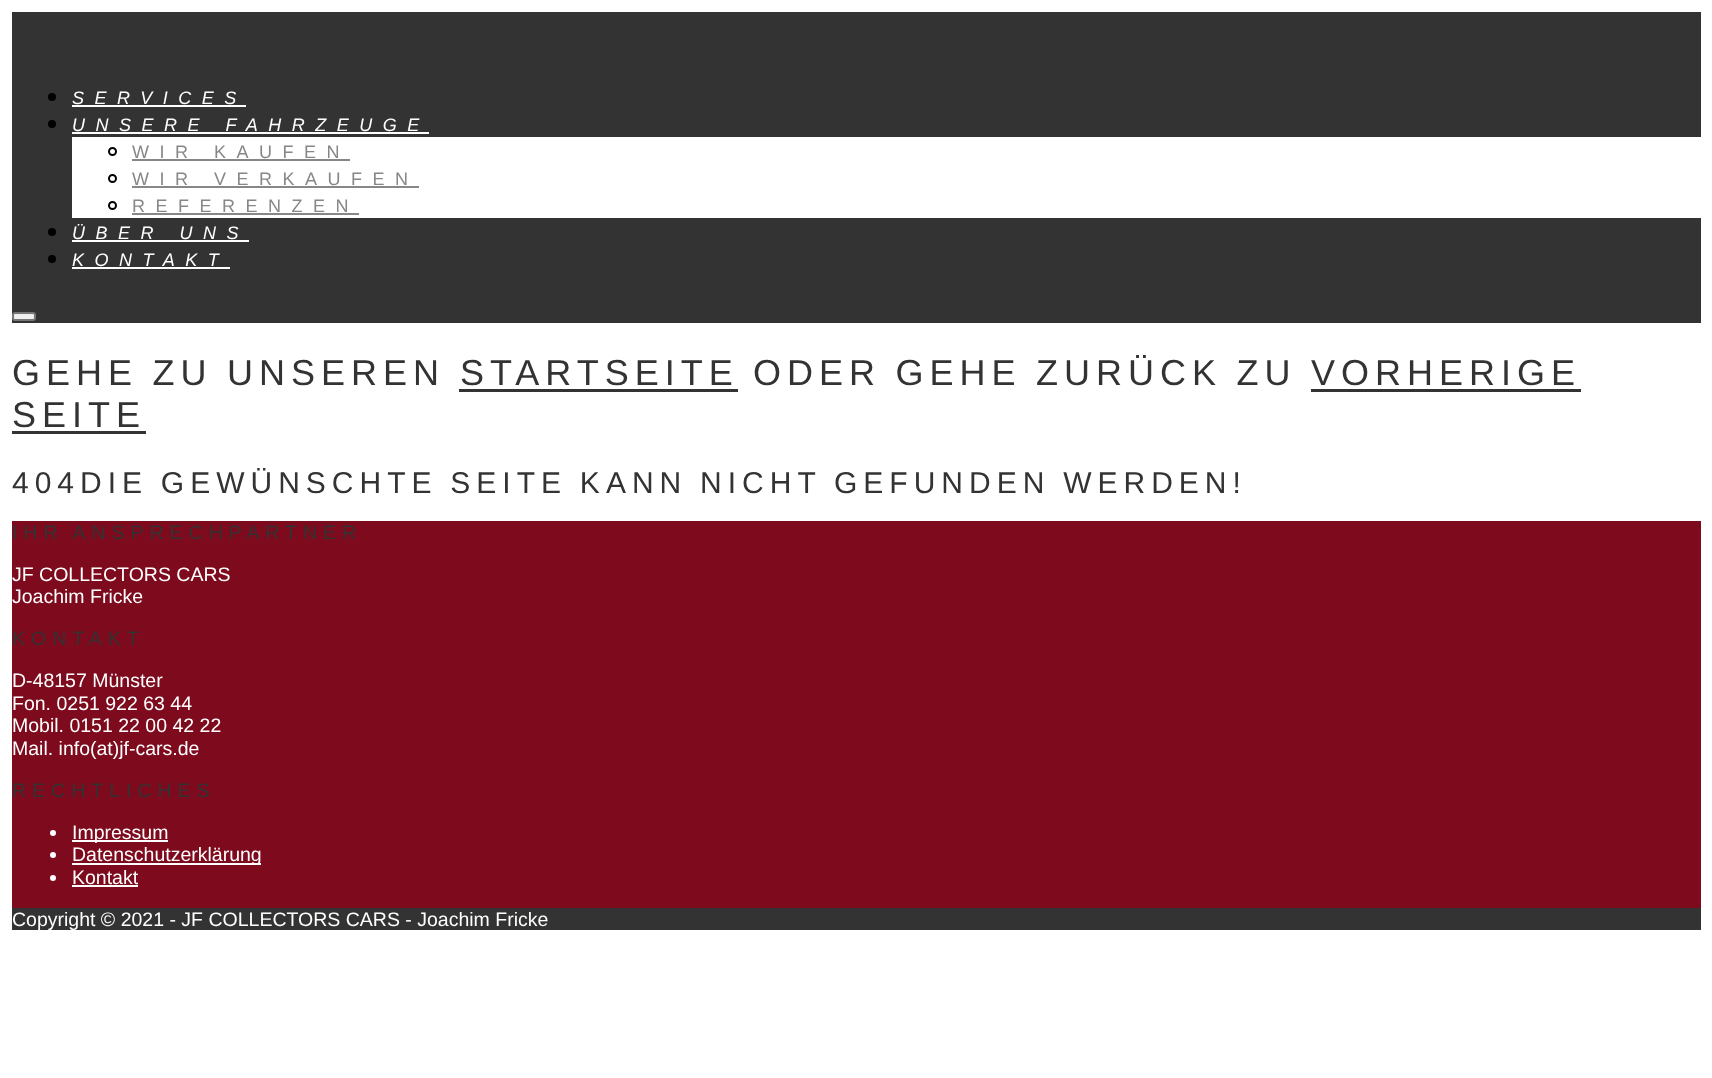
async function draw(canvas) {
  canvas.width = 1712;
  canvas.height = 1078;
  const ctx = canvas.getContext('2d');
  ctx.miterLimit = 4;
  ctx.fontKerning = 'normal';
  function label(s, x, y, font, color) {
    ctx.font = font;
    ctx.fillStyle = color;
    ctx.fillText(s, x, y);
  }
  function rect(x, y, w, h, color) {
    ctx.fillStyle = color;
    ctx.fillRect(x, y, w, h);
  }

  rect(0, 0, 1712, 1078, '#fff');
  rect(12, 12, 1689, 311, '#333');
  ctx.fillStyle = '#000';
  ctx.beginPath();
  ctx.arc(52, 97, 4, 0, 2 * Math.PI);
  ctx.fill();
  ctx.letterSpacing = '10.5px';
  label('SERVICES', 72, 104, 'italic 18px Liberation Sans', '#fff');
  rect(72, 105, 174, 2, '#fff');
  ctx.fillStyle = '#000';
  ctx.beginPath();
  ctx.arc(52, 124, 4, 0, 2 * Math.PI);
  ctx.fill();
  label('UNSERE FAHRZEUGE', 72, 131, 'italic 18px Liberation Sans', '#fff');
  rect(72, 132, 357, 2, '#fff');
  rect(72, 137, 1629, 81, '#fff');
  ctx.beginPath();
  ctx.arc(112.5, 151.5, 3.5, 0, 2 * Math.PI);
  ctx.strokeStyle = '#000';
  ctx.lineWidth = 2;
  ctx.stroke();
  label('WIR KAUFEN', 132, 158, '18px Liberation Sans', '#878786');
  rect(132, 159, 218, 2, '#878786');
  ctx.beginPath();
  ctx.arc(112.5, 178.5, 3.5, 0, 2 * Math.PI);
  ctx.stroke();
  label('WIR VERKAUFEN', 132, 185, '18px Liberation Sans', '#878786');
  rect(132, 186, 287, 2, '#878786');
  ctx.beginPath();
  ctx.arc(112.5, 205.5, 3.5, 0, 2 * Math.PI);
  ctx.stroke();
  label('REFERENZEN', 132, 212, '18px Liberation Sans', '#878786');
  rect(132, 213, 227, 2, '#878786');
  ctx.fillStyle = '#000';
  ctx.beginPath();
  ctx.arc(52, 232, 4, 0, 2 * Math.PI);
  ctx.fill();
  label('ÜBER UNS', 72, 239, 'italic 18px Liberation Sans', '#fff');
  rect(72, 240, 177, 2, '#fff');
  ctx.fillStyle = '#000';
  ctx.beginPath();
  ctx.arc(52, 259, 4, 0, 2 * Math.PI);
  ctx.fill();
  label('KONTAKT', 72, 266, 'italic 18px Liberation Sans', '#fff');
  rect(72, 267, 158, 2, '#fff');
  ctx.fillStyle = '#efefef';
  ctx.beginPath();
  ctx.roundRect(13, 313, 22, 7, 2);
  ctx.fill();
  ctx.strokeStyle = '#767676';
  ctx.stroke();
  ctx.letterSpacing = '6px';
  ctx.wordSpacing = '-1.5px';
  label('GEHE ZU UNSEREN', 12, 385, '36px Liberation Sans', '#333');
  ctx.wordSpacing = '0px';
  label('STARTSEITE', 460, 385, '36px Liberation Sans', '#333');
  rect(459, 389, 279, 3, '#333');
  ctx.wordSpacing = '-1.5px';
  label('ODER GEHE ZURÜCK ZU', 753, 385, '36px Liberation Sans', '#333');
  ctx.wordSpacing = '0px';
  label('VORHERIGE', 1311, 385, '36px Liberation Sans', '#333');
  rect(1311, 389, 270, 3, '#333');
  label('SEITE', 12, 427, '36px Liberation Sans', '#333');
  rect(12, 431, 134, 3, '#333');
  label('404', 12, 493, '30px Liberation Sans', '#333');
  ctx.wordSpacing = '-1.5px';
  label('DIE GEWÜNSCHTE SEITE KANN NICHT GEFUNDEN WERDEN!', 80, 493, '30px Liberation Sans', '#333');
  rect(12, 521, 1689, 387, '#7d0a1d');
  label('IHR ANSPRECHPARTNER', 12, 539, '19.5px Liberation Sans', '#333');
  ctx.letterSpacing = '0px';
  ctx.wordSpacing = '0px';
  label('JF COLLECTORS CARS', 12, 581, '19.5px Liberation Sans', '#fff');
  label('Joachim Fricke', 12, 603, '19.5px Liberation Sans', '#fff');
  ctx.letterSpacing = '6px';
  label('KONTAKT', 12, 645, '19.5px Liberation Sans', '#333');
  ctx.letterSpacing = '0px';
  label('D-48157 Münster', 12, 687, '19.5px Liberation Sans', '#fff');
  label('Fon. 0251 922 63 44', 12, 710, '19.5px Liberation Sans', '#fff');
  label('Mobil. 0151 22 00 42 22', 12, 732, '19.5px Liberation Sans', '#fff');
  label('Mail. info(at)jf-cars.de', 12, 755, '19.5px Liberation Sans', '#fff');
  ctx.letterSpacing = '6px';
  label('RECHTLICHES', 12, 797, '19.5px Liberation Sans', '#333');
  ctx.fillStyle = '#fff';
  ctx.beginPath();
  ctx.arc(53, 833, 3, 0, 2 * Math.PI);
  ctx.fill();
  rect(72, 840, 96, 2, '#fff');
  ctx.letterSpacing = '0px';
  label('Impressum', 72, 839, '19.5px Liberation Sans', '#fff');
  ctx.beginPath();
  ctx.arc(53, 855, 3, 0, 2 * Math.PI);
  ctx.fill();
  rect(72, 863, 189, 2, '#fff');
  label('Datenschutzerklärung', 72, 861, '19.5px Liberation Sans', '#fff');
  ctx.beginPath();
  ctx.arc(53, 878, 3, 0, 2 * Math.PI);
  ctx.fill();
  label('Kontakt', 72, 884, '19.5px Liberation Sans', '#fff');
  rect(72, 885, 66, 2, '#fff');
  rect(12, 908, 1689, 22, '#333');
  label('Copyright © 2021 - JF COLLECTORS CARS - Joachim Fricke', 12, 926, '19.5px Liberation Sans', '#fff');
}

draw(document.querySelector('canvas'));
